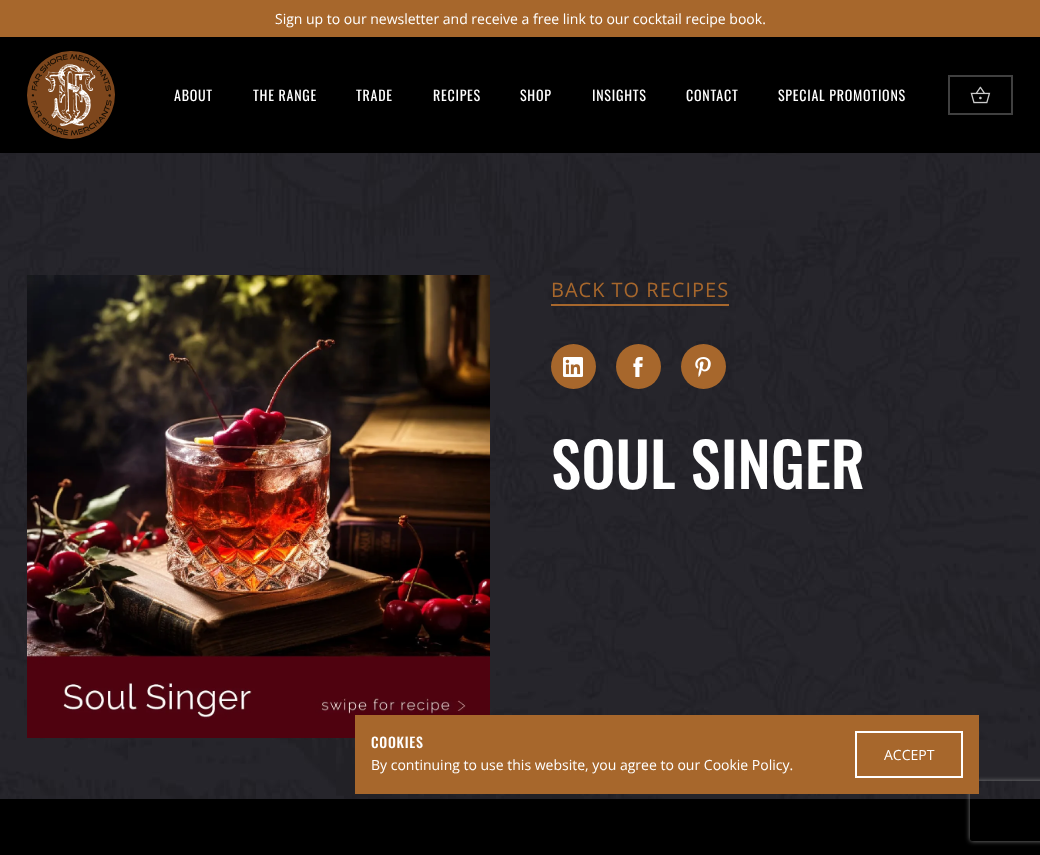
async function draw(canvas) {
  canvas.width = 1040;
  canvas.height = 855;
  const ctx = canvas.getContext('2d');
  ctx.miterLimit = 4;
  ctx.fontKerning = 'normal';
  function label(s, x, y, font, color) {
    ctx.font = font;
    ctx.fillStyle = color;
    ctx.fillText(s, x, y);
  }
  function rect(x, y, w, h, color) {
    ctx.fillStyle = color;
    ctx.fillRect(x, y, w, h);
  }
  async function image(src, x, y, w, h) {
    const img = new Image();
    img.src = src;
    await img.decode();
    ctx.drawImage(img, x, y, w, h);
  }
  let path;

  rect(0, 0, 1040, 855, '#fff');
  await image('assets/img1.png', 0, 153, 1040, 646);
  rect(0, 0, 1040, 37, '#a7672c');
  label('Sign up to our newsletter and receive a free link to our cocktail recipe book.', 275, 24, '14px Open Sans', '#fff');
  rect(0, 37, 1040, 116, '#000');
  await image('assets/img2.png', 27, 51, 88, 88);
  ctx.letterSpacing = '0.75px';
  label('ABOUT', 174, 101, '14px Oswald', '#fff');
  label('THE RANGE', 253, 101, '14px Oswald', '#fff');
  label('TRADE', 356, 101, '14px Oswald', '#fff');
  label('RECIPES', 433, 101, '14px Oswald', '#fff');
  label('SHOP', 520, 101, '14px Oswald', '#fff');
  label('INSIGHTS', 592, 101, '14px Oswald', '#fff');
  label('CONTACT', 686, 101, '14px Oswald', '#fff');
  label('SPECIAL PROMOTIONS', 778, 101, '14px Oswald', '#fff');
  ctx.strokeStyle = '#404040';
  ctx.lineWidth = 2;
  ctx.strokeRect(949, 76, 63, 38);
  await image('assets/img3.png', 970, 86, 21, 18);
  await image('assets/img4.png', 27, 275, 463, 463);
  ctx.letterSpacing = '1px';
  label('BACK TO RECIPES', 551, 297, '20px Open Sans', '#a7672c');
  rect(551, 304, 178, 2, '#a7672c');
  ctx.beginPath();
  ctx.arc(573.5, 366.5, 22.5, 0, 2 * Math.PI);
  ctx.fill();
  await image('assets/img5.png', 563, 357, 20, 20);
  ctx.beginPath();
  ctx.arc(638.5, 366.5, 22.5, 0, 2 * Math.PI);
  ctx.fill();
  await image('assets/img6.png', 633, 357, 10, 20);
  ctx.beginPath();
  ctx.arc(703.5, 366.5, 22.5, 0, 2 * Math.PI);
  ctx.fill();
  await image('assets/img7.png', 695, 357, 16, 20);
  ctx.letterSpacing = '0px';
  label('SOUL SINGER', 551, 489, '500 61px Oswald', '#fff');
  rect(0, 799, 1040, 56, '#000');
  ctx.save();
  path = new Path2D('M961 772H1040V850H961ZM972 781H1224C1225 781 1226 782 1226 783V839C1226 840 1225 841 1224 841H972C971 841 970 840 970 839V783C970 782 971 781 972 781Z');
  ctx.clip(path, 'evenodd');
  ctx.fillStyle = '#808080';
  ctx.filter = 'blur(2.5px)';
  ctx.beginPath();
  ctx.roundRect(970, 781, 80, 60, 2);
  ctx.fill();
  ctx.filter = 'none';
  ctx.restore();
  rect(355, 715, 624, 79, '#a7672c');
  ctx.letterSpacing = '0.75px';
  label('COOKIES', 371, 748, '500 14px Oswald', '#fff');
  ctx.letterSpacing = '0px';
  label('By continuing to use this website, you agree to our Cookie Policy.', 371, 770, '14px Open Sans', '#fff');
  ctx.strokeStyle = '#fff';
  ctx.strokeRect(856, 732, 106, 45);
  label('ACCEPT', 884, 760, '14px Open Sans', '#fff');
}

draw(document.querySelector('canvas'));
